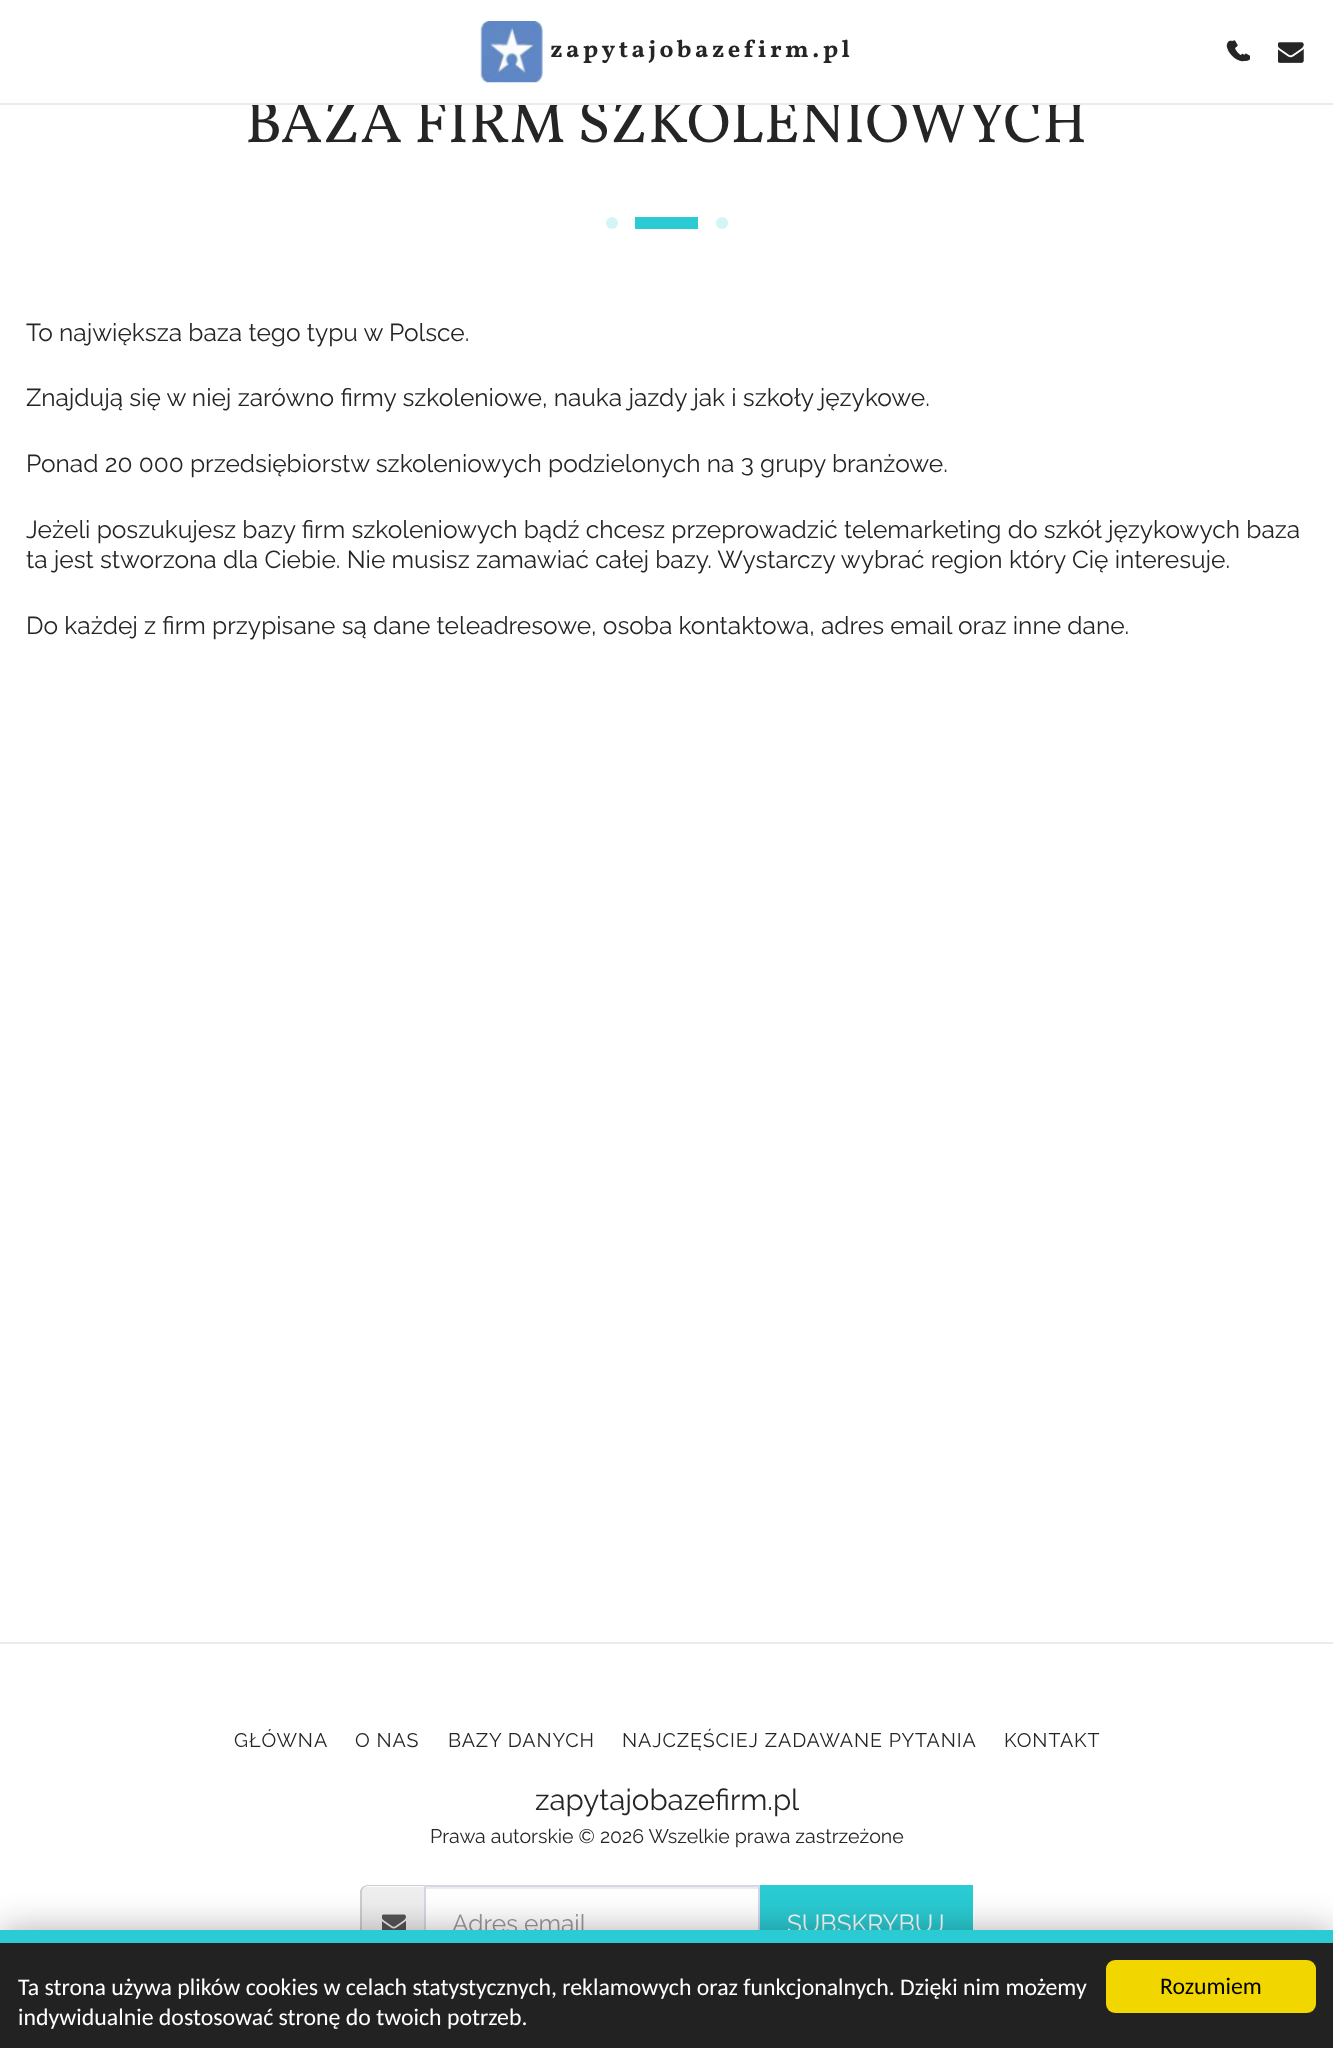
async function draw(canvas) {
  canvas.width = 1333;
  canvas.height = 2048;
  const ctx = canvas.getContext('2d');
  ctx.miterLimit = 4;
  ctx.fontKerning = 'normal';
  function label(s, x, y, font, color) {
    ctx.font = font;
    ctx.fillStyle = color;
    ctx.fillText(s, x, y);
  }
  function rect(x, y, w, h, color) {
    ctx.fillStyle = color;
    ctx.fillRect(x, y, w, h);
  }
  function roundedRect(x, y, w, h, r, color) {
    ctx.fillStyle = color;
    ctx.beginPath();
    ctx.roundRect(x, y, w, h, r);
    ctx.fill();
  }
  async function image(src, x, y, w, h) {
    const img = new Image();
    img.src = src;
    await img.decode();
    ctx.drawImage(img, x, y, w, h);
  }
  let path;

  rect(0, 0, 1333, 2048, '#fff');
  label('BAZA FIRM SZKOLENIOWYCH', 245, 142, '59.75px Vollkorn', '#252525');
  rect(248, 101, 838, 2, '#fff');
  rect(0, 103, 1333, 2, '#ebebeb');
  await image('assets/img1.png', 480, 21, 63, 62);
  ctx.letterSpacing = '3.5px';
  label('zapytajobazefirm.pl', 550, 57, 'bold 24.5px Vollkorn', '#252525');
  await image('assets/img2.png', 1231, 40, 19, 21);
  await image('assets/img3.png', 1226, 40, 19, 22);
  await image('assets/img4.png', 1278, 42, 26, 21);
  ctx.fillStyle = '#d4f5f6';
  ctx.beginPath();
  ctx.arc(612, 223, 6, 0, 2 * Math.PI);
  ctx.fill();
  rect(635, 217, 63, 12, '#2acbd2');
  ctx.fillStyle = '#d4f5f6';
  ctx.beginPath();
  ctx.arc(722, 223, 6, 0, 2 * Math.PI);
  ctx.fill();
  ctx.letterSpacing = '0px';
  label('To największa baza tego typu w Polsce.', 26, 341, '24.5px Raleway', '#252525');
  label('Znajdują się w niej zarówno firmy szkoleniowe, nauka jazdy jak i szkoły językowe.', 26, 406, '24.5px Raleway', '#252525');
  label('Ponad 20 000 przedsiębiorstw szkoleniowych podzielonych na 3 grupy branżowe.', 26, 472, '24.5px Raleway', '#252525');
  label('Jeżeli poszukujesz bazy firm szkoleniowych bądź chcesz przeprowadzić telemarketing do szkół językowych baza', 26, 538, '24.5px Raleway', '#252525');
  label('ta jest stworzona dla Ciebie. Nie musisz zamawiać całej bazy. Wystarczy wybrać region który Cię interesuje.', 26, 568, '24.5px Raleway', '#252525');
  label('Do każdej z firm przypisane są dane teleadresowe, osoba kontaktowa, adres email oraz inne dane.', 26, 634, '24.5px Raleway', '#252525');
  rect(0, 1642, 1333, 2, '#ebebeb');
  ctx.letterSpacing = '0.9px';
  label('GŁÓWNA', 234, 1747, '19.6px Raleway', '#252525');
  label('O NAS', 355, 1747, '19.6px Raleway', '#252525');
  label('BAZY DANYCH', 448, 1747, '19.6px Raleway', '#252525');
  label('NAJCZĘŚCIEJ ZADAWANE PYTANIA', 622, 1747, '19.6px Raleway', '#252525');
  label('KONTAKT', 1004, 1747, '19.6px Raleway', '#252525');
  ctx.letterSpacing = '0px';
  label('zapytajobazefirm.pl', 535, 1810, '29.5px Raleway', '#252525');
  label('Prawa autorskie © 2026 Wszelkie prawa zastrzeżone', 430, 1843, '19.6px Raleway', '#252525');
  ctx.fillStyle = '#eee';
  ctx.beginPath();
  ctx.roundRect(362, 1887, 62, 73, [5, 0, 0, 5]);
  ctx.fill();
  ctx.fillStyle = '#ccc';
  path = new Path2D('M368 1885H424V1962H368C364 1962 360 1959 360 1955V1892C360 1888 364 1885 368 1885ZM368 1886H424V1960H368C365 1960 362 1958 362 1955V1892C362 1889 365 1886 368 1886Z');
  ctx.fill(path, 'evenodd');
  await image('assets/img5.png', 382, 1914, 24, 16);
  rect(425, 1887, 333, 2, '#ececec');
  ctx.strokeStyle = '#d4d7e5';
  ctx.lineWidth = 2;
  ctx.strokeRect(425, 1886, 334, 75);
  label('Adres email', 452, 1932, '24.5px Raleway', '#999');
  rect(760, 1885, 213, 45, '#2acbd2');
  label('SUBSKRYBUJ', 787, 1932, '24.5px Raleway', '#fff');
  ctx.fillStyle = '#0000004f';
  ctx.filter = 'blur(17.5px)';
  ctx.beginPath();
  ctx.rect(0, 1930, 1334, 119);
  ctx.fill();
  ctx.filter = 'none';
  rect(0, 1930, 1333, 13, '#2acbd2');
  rect(0, 1943, 1333, 105, '#222');
  label('Ta strona używa plików cookies w celach statystycznych, reklamowych oraz funkcjonalnych. Dzięki nim możemy', 18, 1995, '23.8px Carlito', '#fff');
  label('indywidualnie dostosować stronę do twoich potrzeb.', 18, 2025, '23.8px Carlito', '#fff');
  roundedRect(1106, 1960, 210, 53, 9, '#f1d600');
  label('Rozumiem', 1160, 1994, '23.8px Carlito', '#000');
}

draw(document.querySelector('canvas'));
